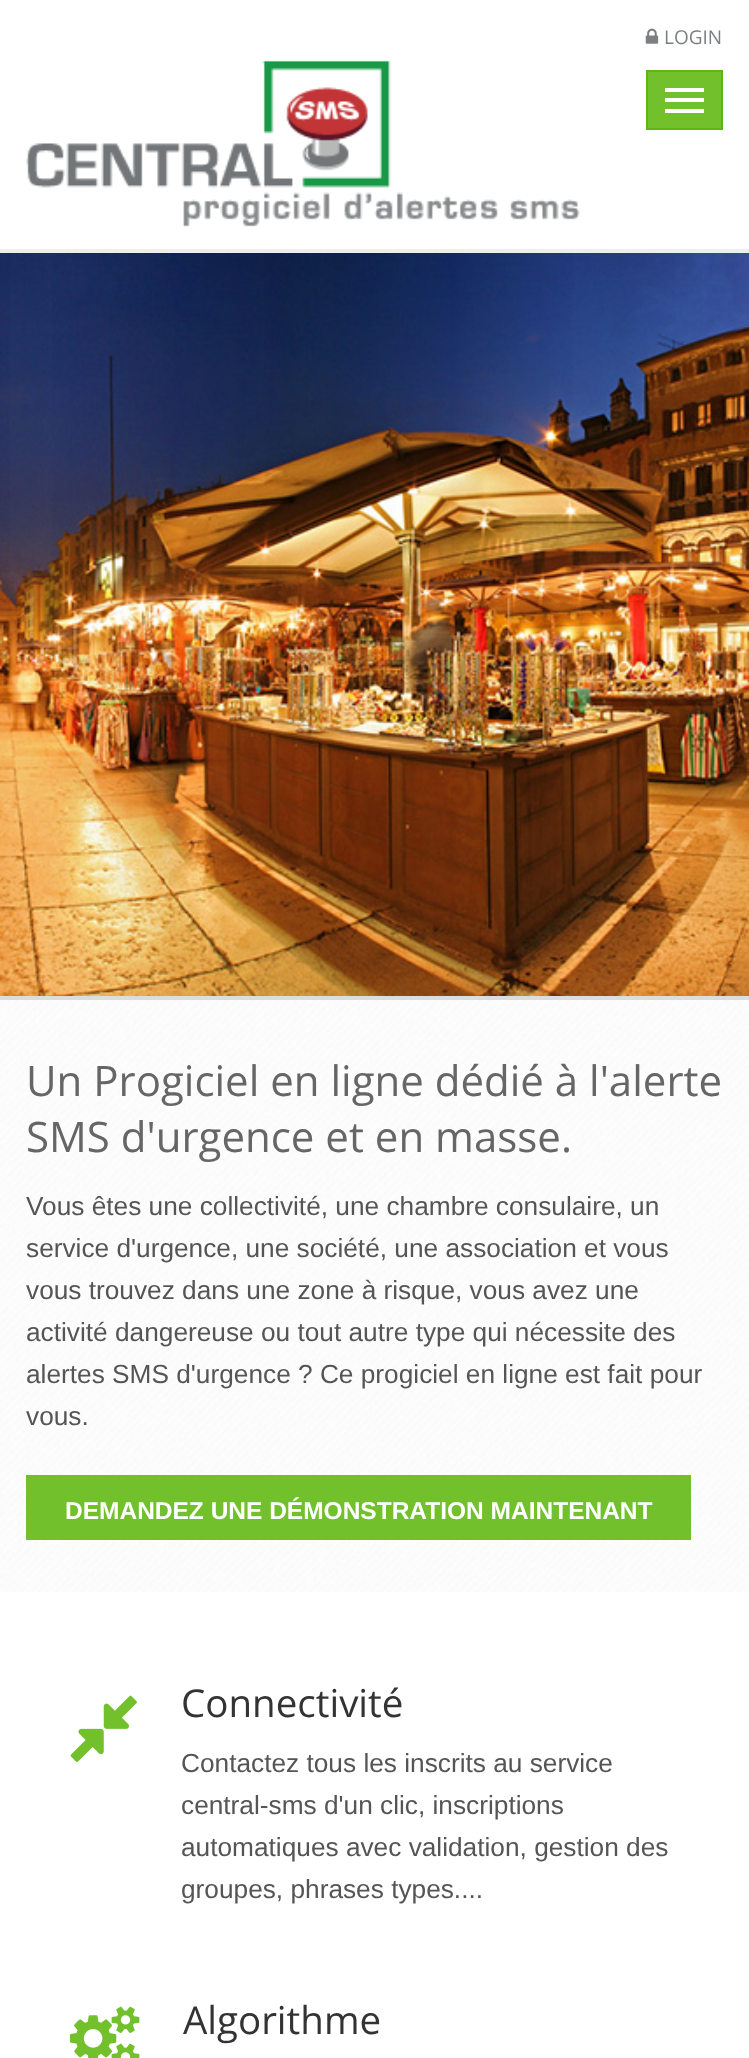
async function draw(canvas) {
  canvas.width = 749;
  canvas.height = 2058;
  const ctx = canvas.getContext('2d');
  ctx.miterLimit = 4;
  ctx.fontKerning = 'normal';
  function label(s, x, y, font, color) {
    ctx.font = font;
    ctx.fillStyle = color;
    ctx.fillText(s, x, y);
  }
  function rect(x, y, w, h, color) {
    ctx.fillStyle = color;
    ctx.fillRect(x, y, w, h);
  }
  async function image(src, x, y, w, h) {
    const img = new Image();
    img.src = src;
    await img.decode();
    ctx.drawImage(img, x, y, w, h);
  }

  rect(0, 0, 749, 2058, '#fff');
  await image('assets/img1.png', 645, 28, 14, 16);
  label('LOGIN', 664, 44, '19px Open Sans', '#7c8082');
  rect(0, 249, 749, 4, '#eee');
  await image('assets/img2.png', 26, 60, 554, 167);
  ctx.fillStyle = '#72c02c';
  ctx.beginPath();
  ctx.rect(647, 71, 75, 58);
  ctx.fill();
  ctx.strokeStyle = '#5fb611';
  ctx.lineWidth = 2;
  ctx.stroke();
  rect(665, 88, 39, 4, '#fff');
  rect(665, 98, 39, 4, '#fff');
  rect(665, 109, 39, 4, '#fff');
  await image('assets/img3.png', 0, 253, 749, 743);
  rect(0, 996, 749, 4, '#ddd');
  await image('assets/img4.png', 0, 1000, 749, 592);
  label('Un Progiciel en ligne dédié à l\'alerte', 26, 1096, '42px Open Sans', '#666');
  label('SMS d\'urgence et en masse.', 26, 1152, '42px Open Sans', '#666');
  label('Vous êtes une collectivité, une chambre consulaire, un', 26, 1215, '26.25px Liberation Sans', '#555');
  label('service d\'urgence, une société, une association et vous', 26, 1257, '26.25px Liberation Sans', '#555');
  label('vous trouvez dans une zone à risque, vous avez une', 26, 1299, '26.25px Liberation Sans', '#555');
  label('activité dangereuse ou tout autre type qui nécessite des', 26, 1341, '26.25px Liberation Sans', '#555');
  label('alertes SMS d\'urgence ? Ce progiciel en ligne est fait pour', 26, 1383, '26.25px Liberation Sans', '#555');
  label('vous.', 26, 1425, '26.25px Liberation Sans', '#555');
  rect(26, 1475, 665, 65, '#72c02c');
  label('DEMANDEZ UNE DÉMONSTRATION MAINTENANT', 65, 1519, 'bold 24.5px Liberation Sans', '#fff');
  await image('assets/img5.png', 70, 1695, 67, 67);
  label('Connectivité', 181, 1717, '38.5px Open Sans', '#333');
  label('Contactez tous les inscrits au service', 181, 1772, '26.25px Liberation Sans', '#555');
  label('central-sms d\'un clic, inscriptions', 181, 1814, '26.25px Liberation Sans', '#555');
  label('automatiques avec validation, gestion des', 181, 1856, '26.25px Liberation Sans', '#555');
  label('groupes, phrases types....', 181, 1898, '26.25px Liberation Sans', '#555');
  await image('assets/img6.png', 70, 2006, 70, 52);
  label('Algorithme', 183, 2034, '38.5px Open Sans', '#333');
}

draw(document.querySelector('canvas'));
